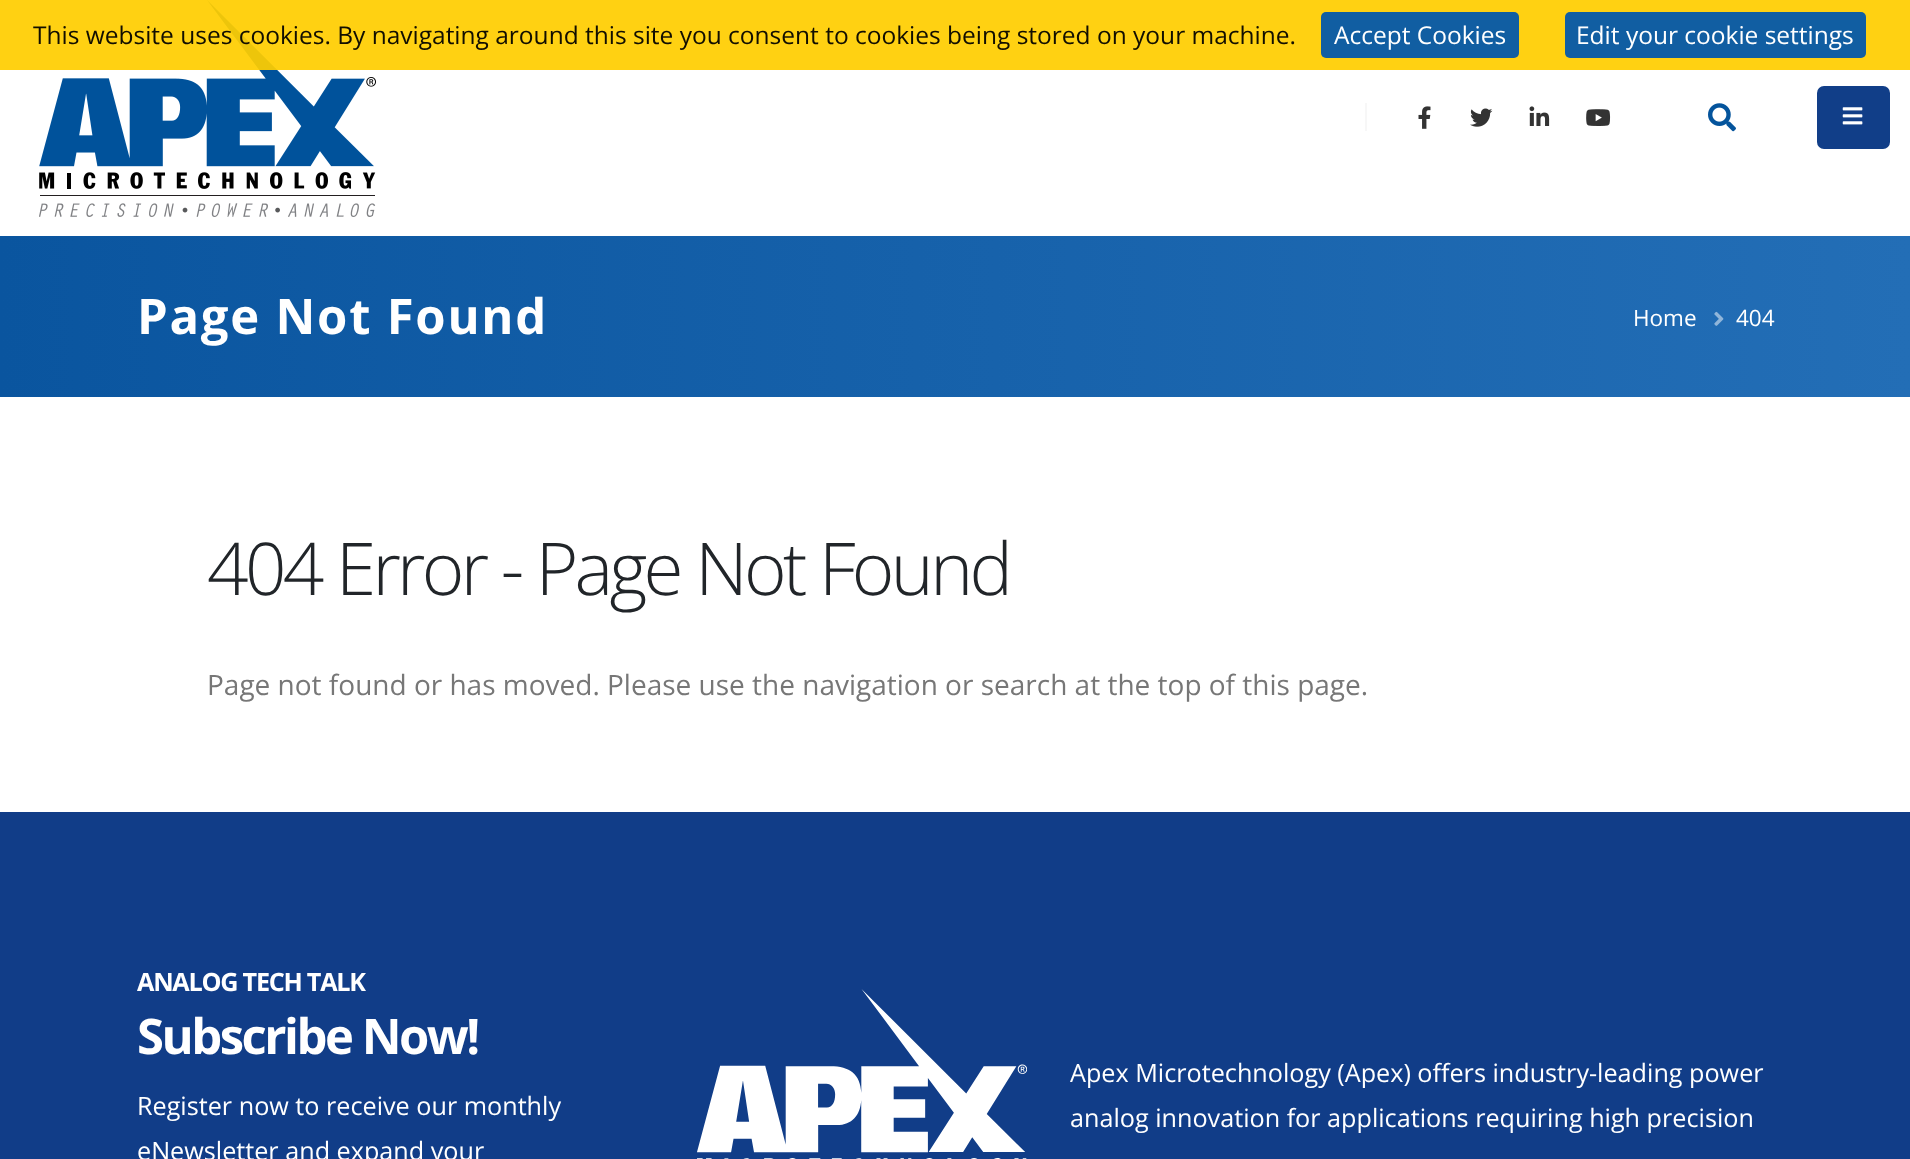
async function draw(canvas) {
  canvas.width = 1910;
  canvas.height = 1159;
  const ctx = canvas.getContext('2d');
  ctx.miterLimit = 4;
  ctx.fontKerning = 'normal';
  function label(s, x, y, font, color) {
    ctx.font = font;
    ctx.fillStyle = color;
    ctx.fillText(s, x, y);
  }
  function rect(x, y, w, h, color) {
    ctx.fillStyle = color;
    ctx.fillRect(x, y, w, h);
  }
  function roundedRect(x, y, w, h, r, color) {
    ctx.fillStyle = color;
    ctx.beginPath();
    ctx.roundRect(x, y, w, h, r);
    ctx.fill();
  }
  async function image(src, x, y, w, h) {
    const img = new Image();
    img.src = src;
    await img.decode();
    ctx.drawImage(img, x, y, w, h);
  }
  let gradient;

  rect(0, 0, 1910, 1159, '#fff');
  await image('assets/img1.png', 39, 0, 337, 217);
  rect(0, 0, 1910, 70, '#ffcd00ed');
  label('This website uses cookies. By navigating around this site you consent to cookies being stored on your machine.', 33, 44, '24.5px Open Sans', '#110e01');
  roundedRect(1321, 12, 198, 46, 5, '#115ea2');
  label('Accept Cookies', 1334, 44, '24.5px Open Sans', '#fff');
  roundedRect(1565, 12, 301, 46, 5, '#115ea2');
  label('Edit your cookie settings', 1576, 44, '24.5px Open Sans', '#fff');
  rect(1365, 103, 2, 28, '#f7f7f7');
  await image('assets/img2.png', 1418, 106, 13, 23);
  await image('assets/img3.png', 1470, 108, 23, 19);
  await image('assets/img4.png', 1529, 106, 21, 20);
  await image('assets/img5.png', 1586, 109, 25, 17);
  await image('assets/img6.png', 1708, 103, 28, 29);
  roundedRect(1817, 86, 73, 63, 7, '#113e88');
  await image('assets/img7.png', 1842, 107, 21, 18);
  gradient = ctx.createLinearGradient(0, 317, 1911, 317);
  gradient.addColorStop(0, '#0a559f');
  gradient.addColorStop(1, '#236eb6');
  ctx.fillStyle = gradient;
  ctx.fillRect(0, 236, 1910, 161);
  ctx.letterSpacing = '1.75px';
  label('Page Not Found', 137, 334, 'bold 49px Open Sans', '#fff');
  ctx.letterSpacing = '0px';
  label('Home', 1633, 326, '22.5px Open Sans', '#fff');
  await image('assets/img8.png', 1714, 311, 10, 15);
  label('404', 1736, 326, '22.5px Open Sans', '#fff');
  ctx.letterSpacing = '-3.65px';
  label('404 Error - Page Not Found', 207, 595, '300 72.75px Open Sans', '#212529');
  ctx.letterSpacing = '0px';
  label('Page not found or has moved. Please use the navigation or search at the top of this page.', 207, 695, '28px Open Sans', '#777');
  rect(0, 812, 1910, 347, '#113d88');
  ctx.letterSpacing = '-1.25px';
  label('ANALOG TECH TALK', 137, 991, 'bold 25.2px Open Sans', '#fff');
  ctx.letterSpacing = '-2.5px';
  label('Subscribe Now!', 137, 1054, 'bold 49px Open Sans', '#fff');
  ctx.letterSpacing = '0px';
  label('Register now to receive our monthly', 137, 1115, '25.2px Open Sans', '#fff');
  label('eNewsletter and expand your', 137, 1160, '25.2px Open Sans', '#fff');
  await image('assets/img9.png', 697, 989, 330, 170);
  label('Apex Microtechnology (Apex) offers industry-leading power', 1070, 1082, '25.2px Open Sans', '#fff');
  label('analog innovation for applications requiring high precision', 1070, 1127, '25.2px Open Sans', '#fff');
}

draw(document.querySelector('canvas'));
